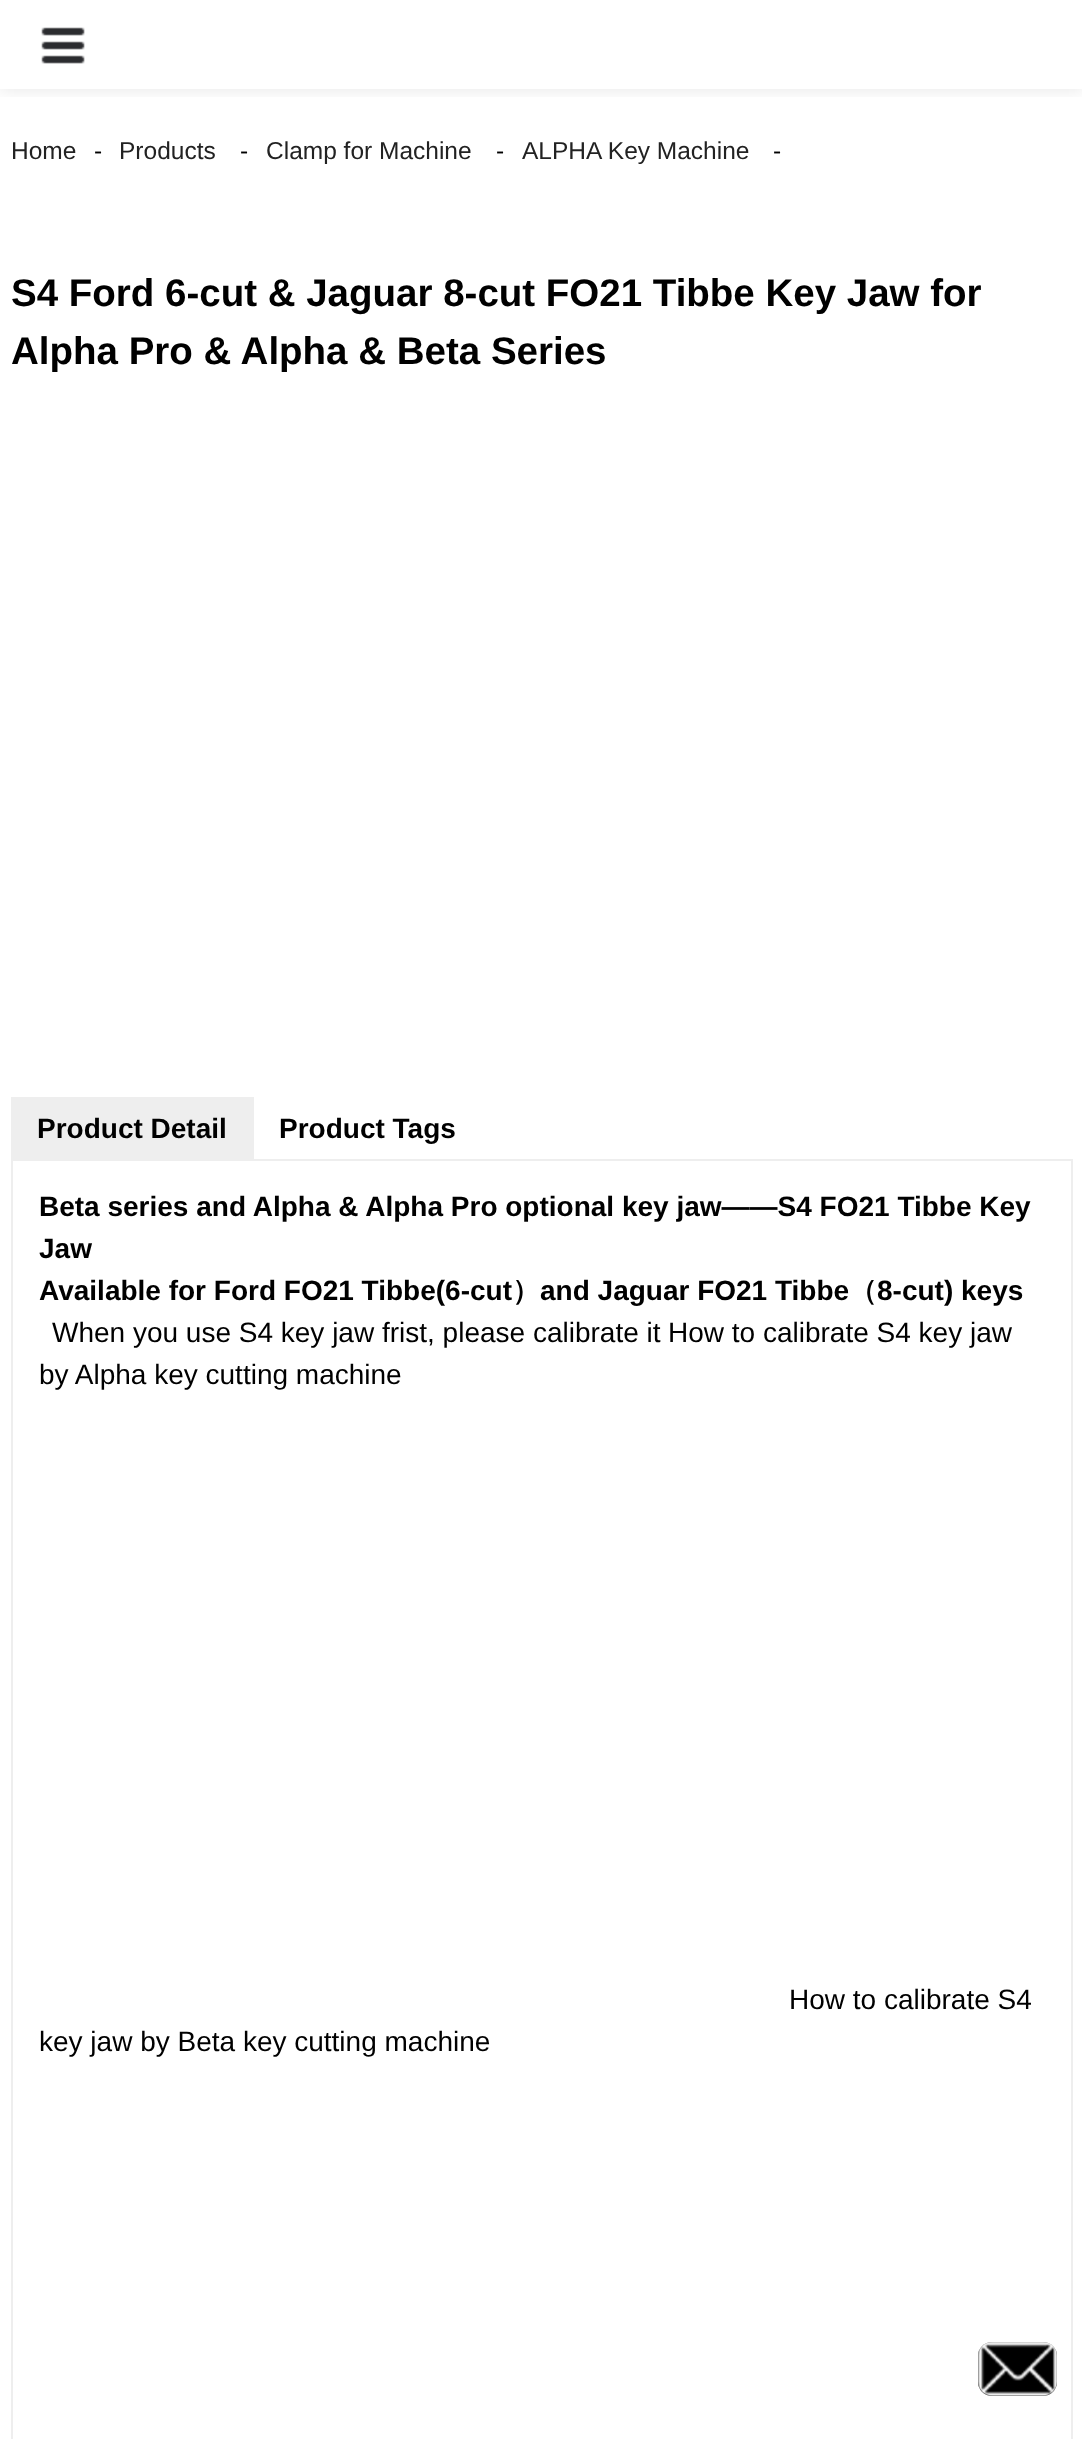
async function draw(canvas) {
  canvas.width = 1082;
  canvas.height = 2439;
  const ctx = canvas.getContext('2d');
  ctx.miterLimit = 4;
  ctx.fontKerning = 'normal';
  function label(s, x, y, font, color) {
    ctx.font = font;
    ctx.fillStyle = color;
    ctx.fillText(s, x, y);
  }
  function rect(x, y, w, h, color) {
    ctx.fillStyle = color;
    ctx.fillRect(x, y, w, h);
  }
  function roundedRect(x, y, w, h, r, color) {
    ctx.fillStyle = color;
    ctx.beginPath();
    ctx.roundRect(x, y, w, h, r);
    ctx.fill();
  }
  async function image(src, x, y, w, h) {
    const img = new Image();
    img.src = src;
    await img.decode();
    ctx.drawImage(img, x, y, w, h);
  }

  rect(0, 0, 1082, 2439, '#fff');
  ctx.save();
  ctx.beginPath();
  ctx.rect(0, 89, 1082, 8);
  ctx.clip();
  ctx.fillStyle = '#0000001a';
  ctx.filter = 'blur(9px)';
  ctx.beginPath();
  ctx.rect(0, 0, 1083, 89);
  ctx.fill();
  ctx.filter = 'none';
  ctx.restore();
  await image('assets/img1.png', 41, 27, 44, 37);
  label('Home', 11, 159, '24.5px Liberation Sans', '#222');
  label('-', 94, 159, '24.5px Liberation Sans', '#000');
  label('Products', 119, 159, '24.5px Liberation Sans', '#222');
  label('-', 240, 159, '24.5px Liberation Sans', '#000');
  label('Clamp for Machine', 266, 159, '24.5px Liberation Sans', '#222');
  label('-', 496, 159, '24.5px Liberation Sans', '#000');
  label('ALPHA Key Machine', 522, 159, '24.5px Liberation Sans', '#222');
  label('-', 773, 159, '24.5px Liberation Sans', '#000');
  label('S4 Ford 6-cut & Jaguar 8-cut FO21 Tibbe Key Jaw for', 11, 306, 'bold 38.5px Liberation Sans', '#000');
  label('Alpha Pro & Alpha & Beta Series', 11, 364, 'bold 38.5px Liberation Sans', '#000');
  rect(11, 1097, 243, 62, '#eee');
  label('Product Detail', 37, 1138, 'bold 28px Liberation Sans', '#000');
  label('Product Tags', 279, 1138, 'bold 28px Liberation Sans', '#000');
  ctx.strokeStyle = '#eee';
  ctx.lineWidth = 2;
  ctx.strokeRect(12, 1160, 1060, 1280);
  label('Beta series and Alpha & Alpha Pro optional key jaw——S4 FO21 Tibbe Key', 39, 1216, 'bold 28px Liberation Sans', '#000');
  label('Jaw', 39, 1258, 'bold 28px Liberation Sans', '#000');
  label('Available for Ford FO21 Tibbe(6-cut', 39, 1300, 'bold 28px Liberation Sans', '#000');
  label('）', 512, 1300, 'bold 28px WenQuanYi Zen Hei', '#000');
  label('and Jaguar FO21 Tibbe', 540, 1300, 'bold 28px Liberation Sans', '#000');
  label('（', 849, 1300, 'bold 28px WenQuanYi Zen Hei', '#000');
  label('8-cut) keys', 877, 1300, 'bold 28px Liberation Sans', '#000');
  label('When you use S4 key jaw frist, please calibrate it', 52, 1342, '28px Liberation Sans', '#000');
  label('How to calibrate S4 key jaw', 668, 1342, '28px Liberation Sans', '#000');
  label('by Alpha key cutting machine', 39, 1384, '28px Liberation Sans', '#000');
  label('How to calibrate S4', 789, 2009, '28px Liberation Sans', '#000');
  label('key jaw by Beta key cutting machine', 39, 2051, '28px Liberation Sans', '#000');
  roundedRect(978, 2342, 79, 54, 14, '#000');
  await image('assets/img2.png', 978, 2342, 79, 54);
}

draw(document.querySelector('canvas'));
